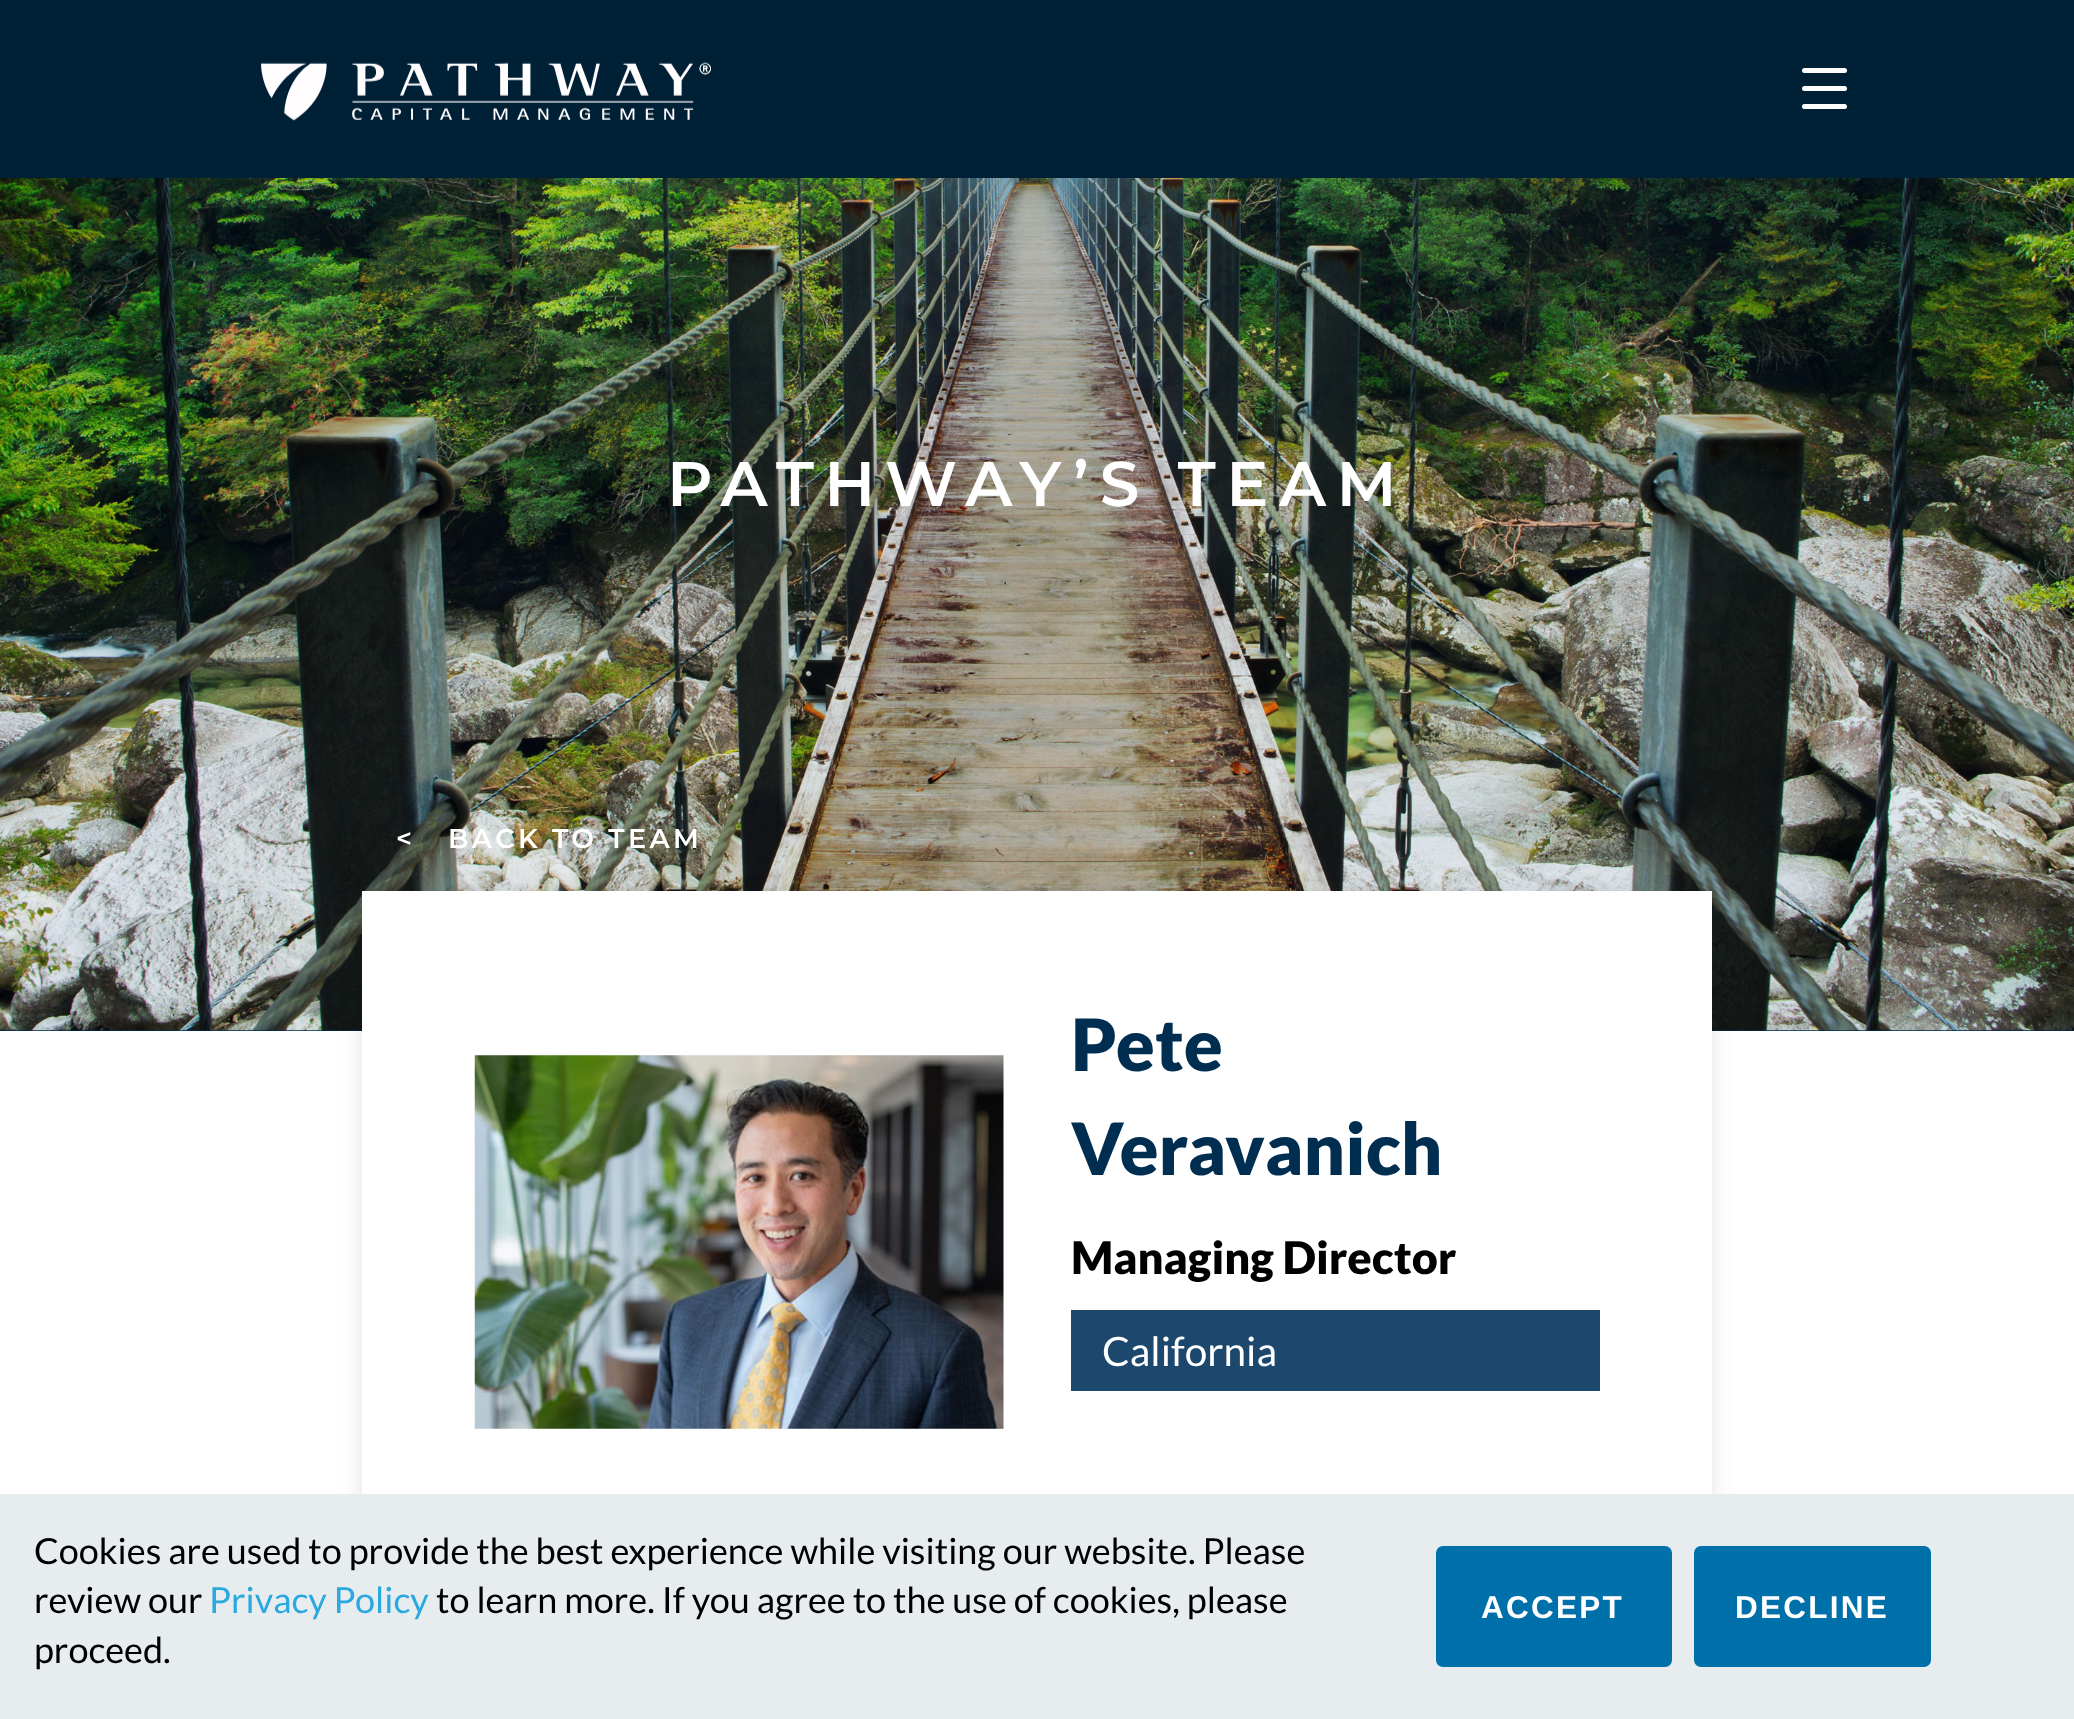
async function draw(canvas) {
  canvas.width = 2074;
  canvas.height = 1719;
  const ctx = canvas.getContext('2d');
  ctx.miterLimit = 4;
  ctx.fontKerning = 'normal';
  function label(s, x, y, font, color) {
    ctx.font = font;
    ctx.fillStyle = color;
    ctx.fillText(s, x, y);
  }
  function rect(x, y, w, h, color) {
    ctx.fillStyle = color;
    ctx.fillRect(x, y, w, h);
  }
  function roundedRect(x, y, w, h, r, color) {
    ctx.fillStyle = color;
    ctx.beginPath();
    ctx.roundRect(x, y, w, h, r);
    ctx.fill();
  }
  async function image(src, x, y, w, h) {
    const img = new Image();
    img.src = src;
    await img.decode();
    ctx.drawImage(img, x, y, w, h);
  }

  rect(0, 0, 2074, 1719, '#fff');
  rect(0, 0, 2074, 178, '#002036');
  await image('assets/img1.png', 261, 62, 450, 59);
  roundedRect(1802, 68, 45, 5, 2.5, '#fff');
  roundedRect(1802, 86, 45, 5, 2.5, '#fff');
  roundedRect(1802, 104, 45, 5, 2.5, '#fff');
  rect(0, 178, 2074, 853, '#002e50');
  await image('assets/img2.png', 0, 178, 2074, 853);
  ctx.letterSpacing = '10.5px';
  label('PATHWAY’S TEAM', 667, 506, '600 63px Montserrat', '#fff');
  ctx.letterSpacing = '3.4px';
  label('<   BACK TO TEAM', 396, 848, '600 27px Montserrat', '#fff');
  ctx.fillStyle = '#0000001a';
  ctx.filter = 'blur(11px)';
  ctx.beginPath();
  ctx.rect(362, 896, 1350, 702);
  ctx.fill();
  ctx.filter = 'none';
  rect(362, 891, 1350, 603, '#fff');
  await image('assets/img3.png', 474, 1055, 530, 374);
  ctx.letterSpacing = '0px';
  label('Pete', 1071, 1071, '900 72px Lato', '#002e50');
  label('Veravanich', 1071, 1175, '900 72px Lato', '#002e50');
  label('Managing Director', 1071, 1274, '900 45px Lato', '#000');
  rect(1071, 1310, 529, 81, '#1d486d');
  label('California', 1102, 1366, '40.5px Lato', '#fff');
  rect(0, 1494, 2074, 225, '#e7ecef');
  label('Cookies are used to provide the best experience while visiting our website. Please', 34, 1564, '36px Lato', '#000');
  label('review our', 34, 1613, '36px Lato', '#000');
  label('Privacy Policy', 209, 1613, '36px Lato', '#29a9e0');
  label('to learn more. If you agree to the use of cookies, please', 436, 1613, '36px Lato', '#000');
  label('proceed.', 34, 1663, '36px Lato', '#000');
  roundedRect(1436, 1546, 236, 121, 7, '#0070ab');
  ctx.letterSpacing = '2.25px';
  label('ACCEPT', 1481, 1618, 'bold 31.5px Liberation Sans', '#fff');
  roundedRect(1694, 1546, 237, 121, 7, '#0070ab');
  label('DECLINE', 1735, 1618, 'bold 31.5px Liberation Sans', '#fff');
}

draw(document.querySelector('canvas'));
